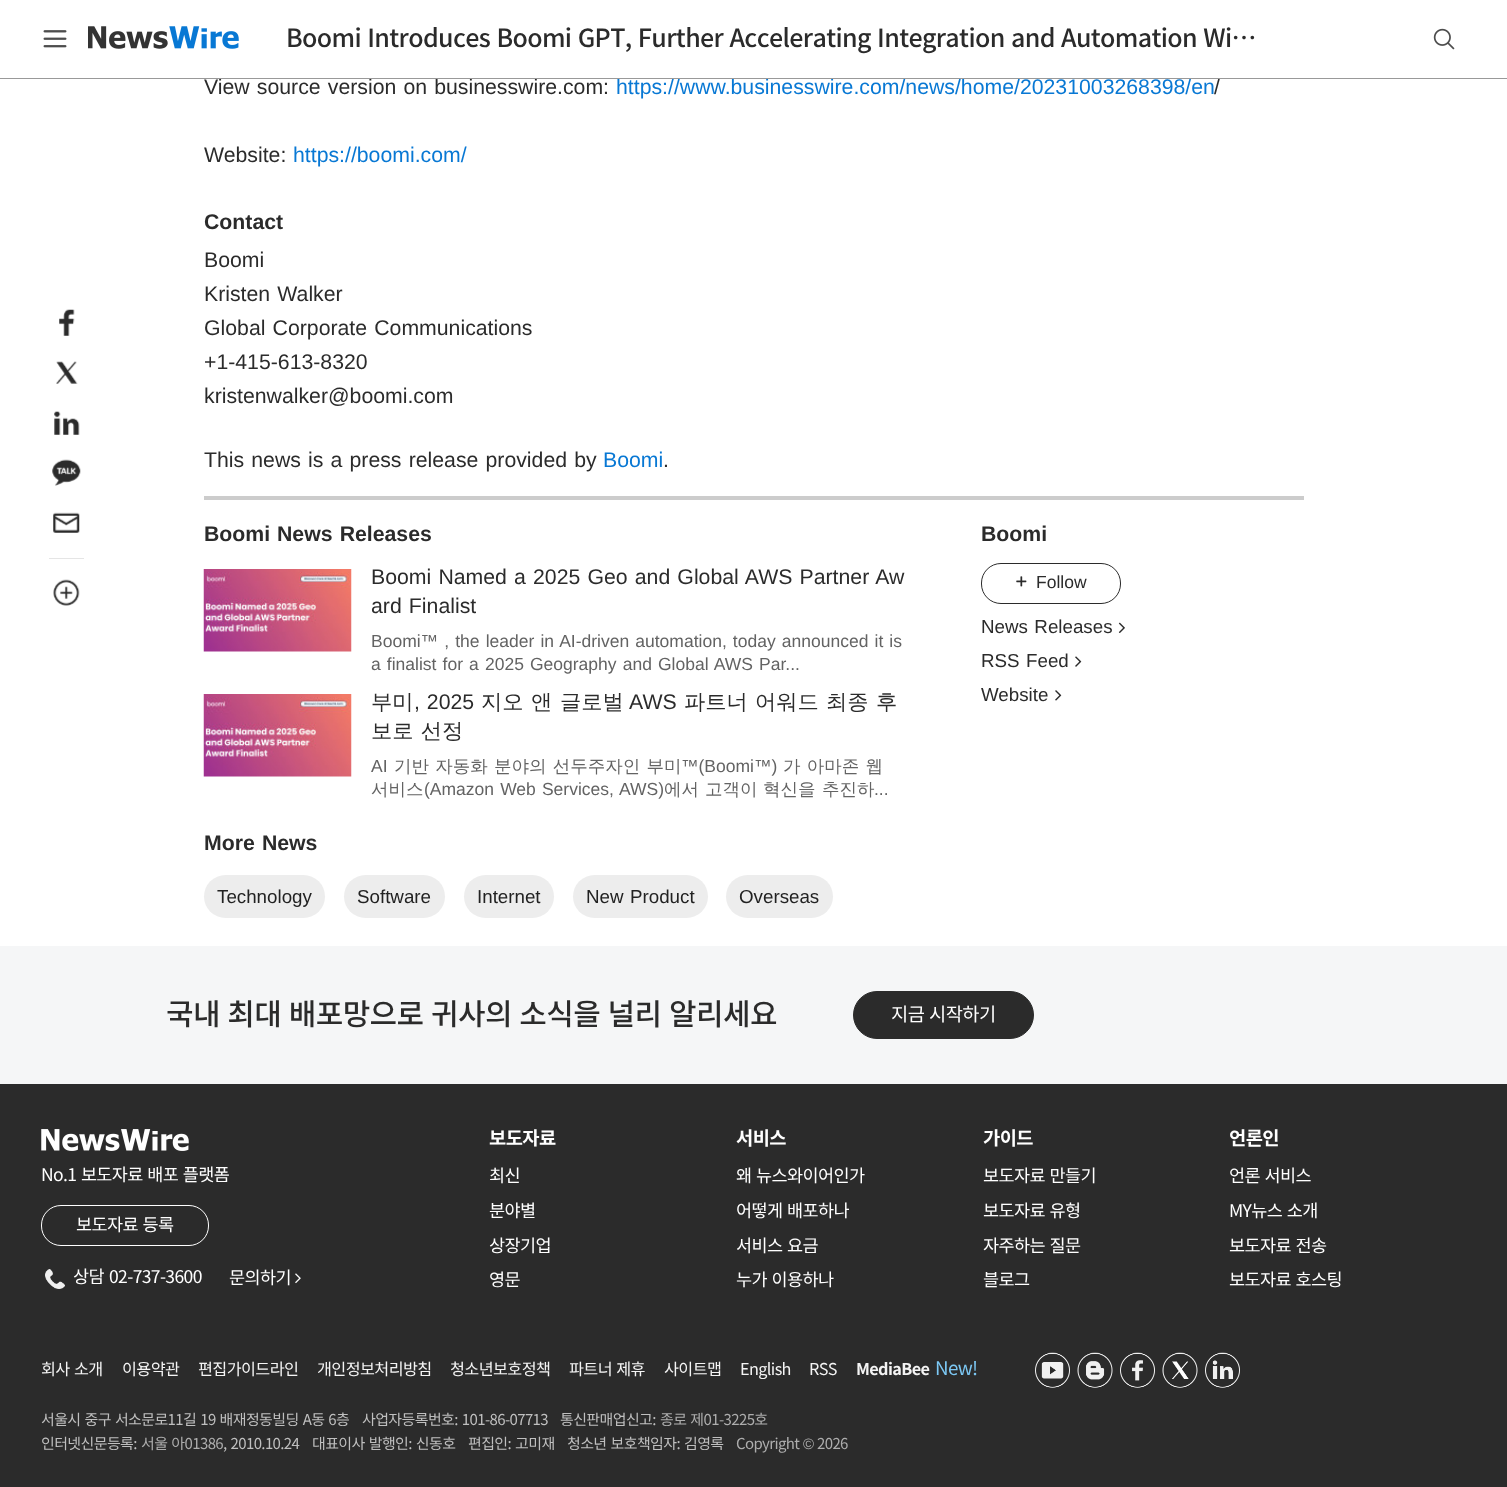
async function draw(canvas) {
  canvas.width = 1507;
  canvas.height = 1487;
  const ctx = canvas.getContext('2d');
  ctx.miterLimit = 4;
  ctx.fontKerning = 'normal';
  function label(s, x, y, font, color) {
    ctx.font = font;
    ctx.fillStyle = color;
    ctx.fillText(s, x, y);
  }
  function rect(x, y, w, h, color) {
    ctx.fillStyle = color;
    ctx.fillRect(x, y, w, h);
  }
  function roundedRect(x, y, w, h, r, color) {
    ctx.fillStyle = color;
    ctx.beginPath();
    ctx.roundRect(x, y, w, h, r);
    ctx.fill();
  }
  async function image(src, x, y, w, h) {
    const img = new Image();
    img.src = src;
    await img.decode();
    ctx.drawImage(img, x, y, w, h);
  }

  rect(0, 0, 1507, 1487, '#fff');
  ctx.wordSpacing = '1.25px';
  label('View source version on businesswire.com:', 204, 94, '21.25px Liberation Sans', '#2b2b2b');
  ctx.wordSpacing = '0px';
  label('https://www.businesswire.com/news/home/20231003268398/en', 616, 94, '21.25px Liberation Sans', '#0878d4');
  label('/', 1214, 94, '21.25px Liberation Sans', '#2b2b2b');
  rect(0, 78, 1507, 1, '#999');
  await image('assets/img1.png', 43, 30, 24, 18);
  await image('assets/img2.png', 88, 26, 151, 23);
  ctx.letterSpacing = '-0.62px';
  ctx.wordSpacing = '1.25px';
  label('Boomi Introduces Boomi GPT, Further Accelerating Integration and Automation Wi…', 286, 47, '500 25px Noto Sans KR', '#2b2b2b');
  await image('assets/img3.png', 1433, 28, 22, 22);
  await image('assets/img4.png', 59, 309, 16, 27);
  await image('assets/img5.png', 56, 361, 22, 23);
  await image('assets/img6.png', 54, 411, 26, 24);
  await image('assets/img7.png', 52, 459, 29, 27);
  await image('assets/img8.png', 53, 512, 27, 21);
  rect(49, 558, 35, 1, '#e5e5e5');
  await image('assets/img9.png', 53, 579, 27, 27);
  ctx.letterSpacing = '0px';
  ctx.wordSpacing = '0px';
  label('Website:', 204, 162, '21.25px Liberation Sans', '#2b2b2b');
  label('https://boomi.com/', 293, 162, '21.25px Liberation Sans', '#0878d4');
  label('Contact', 204, 229, 'bold 21.25px Liberation Sans', '#2b2b2b');
  label('Boomi', 204, 267, '21.25px Liberation Sans', '#2b2b2b');
  ctx.wordSpacing = '1.25px';
  label('Kristen Walker', 204, 301, '21.25px Liberation Sans', '#2b2b2b');
  label('Global Corporate Communications', 204, 335, '21.25px Liberation Sans', '#2b2b2b');
  ctx.wordSpacing = '0px';
  label('+1-415-613-8320', 204, 369, '21.25px Liberation Sans', '#2b2b2b');
  label('kristenwalker@boomi.com', 204, 403, '21.25px Liberation Sans', '#2b2b2b');
  rect(204, 496, 1100, 4, '#ccc');
  ctx.wordSpacing = '1.25px';
  label('This news is a press release provided by', 204, 467, '21.25px Liberation Sans', '#2b2b2b');
  ctx.wordSpacing = '0px';
  label('Boomi', 603, 467, '21.25px Liberation Sans', '#0878d4');
  label('.', 663, 467, '21.25px Liberation Sans', '#2b2b2b');
  label('Boomi', 204, 541, 'bold 21.25px Liberation Sans', '#2b2b2b');
  ctx.wordSpacing = '1.25px';
  label('News Releases', 277, 541, 'bold 21.25px Liberation Sans', '#2b2b2b');
  await image('assets/img10.png', 203, 569, 149, 83);
  label('Boomi Named a 2025 Geo and Global AWS Partner Aw', 371, 584, '21.25px Liberation Sans', '#2b2b2b');
  label('ard Finalist', 371, 613, '21.25px Liberation Sans', '#2b2b2b');
  label('Boomi™ , the leader in AI-driven automation, today announced it is', 371, 647, '17.5px Liberation Sans', '#636363');
  label('a finalist for a 2025 Geography and Global AWS Par...', 371, 670, '17.5px Liberation Sans', '#636363');
  await image('assets/img10.png', 203, 694, 149, 83);
  ctx.wordSpacing = '0px';
  label('부미', 371, 709, '500 21.25px WenQuanYi Zen Hei', '#2b2b2b');
  ctx.wordSpacing = '1px';
  label(', 2025', 414, 709, '21.25px Liberation Sans', '#2b2b2b');
  ctx.wordSpacing = '0px';
  label('지오', 481, 709, '500 21.25px WenQuanYi Zen Hei', '#2b2b2b');
  label('앤', 531, 709, '500 21.25px WenQuanYi Zen Hei', '#2b2b2b');
  label('글로벌', 560, 709, '500 21.25px WenQuanYi Zen Hei', '#2b2b2b');
  label('AWS', 629, 709, '21.25px Liberation Sans', '#2b2b2b');
  label('파트너', 684, 709, '500 21.25px WenQuanYi Zen Hei', '#2b2b2b');
  label('어워드', 755, 709, '500 21.25px WenQuanYi Zen Hei', '#2b2b2b');
  label('최종', 826, 709, '500 21.25px WenQuanYi Zen Hei', '#2b2b2b');
  label('후', 876, 709, '500 21.25px WenQuanYi Zen Hei', '#2b2b2b');
  ctx.wordSpacing = '1px';
  label('보로 선정', 371, 738, '500 21.25px WenQuanYi Zen Hei', '#2b2b2b');
  ctx.wordSpacing = '0px';
  label('AI', 371, 772, '17.5px Liberation Sans', '#636363');
  ctx.wordSpacing = '1px';
  label('기반 자동화 분야의 선두주자인 부미', 394, 772, '500 17.5px WenQuanYi Zen Hei', '#636363');
  ctx.wordSpacing = '0px';
  label('™(Boomi™)', 681, 772, '17.5px Liberation Sans', '#636363');
  ctx.wordSpacing = '1px';
  label('가 아마존 웹', 783, 772, '500 17.5px WenQuanYi Zen Hei', '#636363');
  ctx.wordSpacing = '0px';
  label('서비스', 371, 795, '500 17.5px WenQuanYi Zen Hei', '#636363');
  ctx.wordSpacing = '1.25px';
  label('(Amazon Web Services, AWS)', 424, 795, '17.5px Liberation Sans', '#636363');
  ctx.wordSpacing = '0px';
  label('에서', 664, 795, '500 17.5px WenQuanYi Zen Hei', '#636363');
  label('고객이', 705, 795, '500 17.5px WenQuanYi Zen Hei', '#636363');
  label('혁신을', 763, 795, '500 17.5px WenQuanYi Zen Hei', '#636363');
  label('추진하', 822, 795, '500 17.5px WenQuanYi Zen Hei', '#636363');
  label('...', 874, 795, '17.5px Liberation Sans', '#636363');
  ctx.wordSpacing = '1.25px';
  label('More News', 204, 850, 'bold 21.25px Liberation Sans', '#2b2b2b');
  roundedRect(204, 875, 121, 43, 21.5, '#ededed');
  ctx.wordSpacing = '0px';
  label('Technology', 217, 903, '18.75px Liberation Sans', '#222');
  roundedRect(344, 875, 101, 43, 21.5, '#ededed');
  label('Software', 357, 903, '18.75px Liberation Sans', '#222');
  roundedRect(464, 875, 90, 43, 21.5, '#ededed');
  label('Internet', 477, 903, '18.75px Liberation Sans', '#222');
  roundedRect(573, 875, 135, 43, 21.5, '#ededed');
  ctx.wordSpacing = '1.25px';
  label('New Product', 586, 903, '18.75px Liberation Sans', '#222');
  roundedRect(726, 875, 107, 43, 21.5, '#ededed');
  ctx.wordSpacing = '0px';
  label('Overseas', 739, 903, '18.75px Liberation Sans', '#222');
  label('Boomi', 981, 541, 'bold 21.25px Liberation Sans', '#2b2b2b');
  ctx.beginPath();
  ctx.roundRect(981.5, 563.5, 139, 40, 19.5);
  ctx.strokeStyle = '#2b2b2b';
  ctx.stroke();
  await image('assets/img11.png', 1016, 576, 11, 11);
  label('Follow', 1036, 588, '17.5px Liberation Sans', '#2b2b2b');
  ctx.wordSpacing = '1.25px';
  label('News Releases', 981, 633, '18.75px Liberation Sans', '#2b2b2b');
  await image('assets/img12.png', 1118, 622, 7, 11);
  label('RSS Feed', 981, 667, '18.75px Liberation Sans', '#2b2b2b');
  await image('assets/img13.png', 1075, 656, 7, 11);
  ctx.wordSpacing = '0px';
  label('Website', 981, 701, '18.75px Liberation Sans', '#2b2b2b');
  await image('assets/img14.png', 1055, 690, 7, 11);
  rect(0, 946, 1507, 138, '#f5f6f7');
  ctx.letterSpacing = '-0.62px';
  ctx.wordSpacing = '1.25px';
  label('국내 최대 배포망으로 귀사의 소식을 널리 알리세요', 166, 1025, '500 30px Noto Sans KR', '#2b2b2b');
  ctx.beginPath();
  ctx.roundRect(853.5, 991.5, 180, 47, 23.5);
  ctx.fill();
  ctx.stroke();
  label('지금 시작하기', 891, 1021, '18.75px Noto Sans KR', '#fff');
  rect(0, 1084, 1507, 403, '#2b2b2b');
  await image('assets/img15.png', 41, 1129, 148, 22);
  label('No.1 보도자료 배포 플랫폼', 41, 1181, '17.5px Noto Sans KR', '#fff');
  ctx.beginPath();
  ctx.roundRect(41.5, 1205.5, 167, 40, 19.5);
  ctx.strokeStyle = '#fff';
  ctx.stroke();
  label('보도자료 등록', 76, 1231, '17.5px Noto Sans KR', '#fff');
  await image('assets/img16.png', 45, 1269, 20, 20);
  ctx.wordSpacing = '0px';
  label('상담', 73, 1283, '17.5px Noto Sans KR', '#fff');
  label('02-737-3600', 109, 1283, '17.5px Noto Sans KR', '#fff');
  label('문의하기', 229, 1284, '17.5px Noto Sans KR', '#fff');
  await image('assets/img17.png', 295, 1273, 6, 11);
  label('보도자료', 489, 1145, 'bold 18.75px Noto Sans KR', '#fff');
  label('최신', 489, 1182, '17.5px Noto Sans KR', '#fff');
  label('분야별', 489, 1217, '17.5px Noto Sans KR', '#fff');
  label('상장기업', 489, 1252, '17.5px Noto Sans KR', '#fff');
  label('영문', 489, 1286, '17.5px Noto Sans KR', '#fff');
  label('서비스', 736, 1145, 'bold 18.75px Noto Sans KR', '#fff');
  ctx.wordSpacing = '1.25px';
  label('왜 뉴스와이어인가', 736, 1182, '17.5px Noto Sans KR', '#fff');
  label('어떻게 배포하나', 736, 1217, '17.5px Noto Sans KR', '#fff');
  label('서비스 요금', 736, 1252, '17.5px Noto Sans KR', '#fff');
  label('누가 이용하나', 736, 1286, '17.5px Noto Sans KR', '#fff');
  ctx.wordSpacing = '0px';
  label('가이드', 983, 1145, 'bold 18.75px Noto Sans KR', '#fff');
  ctx.wordSpacing = '1.25px';
  label('보도자료 만들기', 983, 1182, '17.5px Noto Sans KR', '#fff');
  label('보도자료 유형', 983, 1217, '17.5px Noto Sans KR', '#fff');
  label('자주하는 질문', 983, 1252, '17.5px Noto Sans KR', '#fff');
  ctx.wordSpacing = '0px';
  label('블로그', 983, 1286, '17.5px Noto Sans KR', '#fff');
  label('언론인', 1229, 1145, 'bold 18.75px Noto Sans KR', '#fff');
  ctx.wordSpacing = '1.25px';
  label('언론 서비스', 1229, 1182, '17.5px Noto Sans KR', '#fff');
  label('MY뉴스 소개', 1229, 1217, '17.5px Noto Sans KR', '#fff');
  label('보도자료 전송', 1229, 1252, '17.5px Noto Sans KR', '#fff');
  label('보도자료 호스팅', 1229, 1286, '17.5px Noto Sans KR', '#fff');
  label('회사 소개', 41, 1375, '16.25px Noto Sans KR', '#f4f4f4');
  ctx.wordSpacing = '0px';
  label('이용약관', 122, 1375, '16.25px Noto Sans KR', '#f4f4f4');
  label('편집가이드라인', 198, 1375, '16.25px Noto Sans KR', '#f4f4f4');
  label('개인정보처리방침', 317, 1375, '16.25px Noto Sans KR', '#f4f4f4');
  label('청소년보호정책', 450, 1375, '16.25px Noto Sans KR', '#f4f4f4');
  ctx.wordSpacing = '1.25px';
  label('파트너 제휴', 569, 1375, '16.25px Noto Sans KR', '#f4f4f4');
  ctx.wordSpacing = '0px';
  label('사이트맵', 664, 1375, '16.25px Noto Sans KR', '#f4f4f4');
  label('English', 740, 1375, '16.25px Noto Sans KR', '#f4f4f4');
  label('RSS', 809, 1375, '16.25px Noto Sans KR', '#f4f4f4');
  label('MediaBee', 856, 1375, 'bold 16.25px Noto Sans KR', '#f4f4f4');
  label('New!', 935, 1375, '18.75px Noto Sans KR', '#7cc8f4');
  await image('assets/img18.png', 1035, 1352, 35, 36);
  await image('assets/img19.png', 1077, 1352, 36, 36);
  await image('assets/img20.png', 1120, 1352, 35, 36);
  await image('assets/img21.png', 1162, 1352, 36, 36);
  await image('assets/img22.png', 1205, 1352, 35, 36);
  ctx.wordSpacing = '1.25px';
  label('서울시 중구 서소문로11길 19 배재정동빌딩 A동 6층', 41, 1425, '15px Noto Sans KR', '#bfbfbf');
  label('사업자등록번호: 101-86-07713', 362, 1425, '15px Noto Sans KR', '#bfbfbf');
  ctx.wordSpacing = '0px';
  label('통신판매업신고:', 560, 1425, '15px Noto Sans KR', '#bfbfbf');
  ctx.wordSpacing = '1.25px';
  label('종로 제01-3225호', 660, 1425, '15px Noto Sans KR', '#adadad');
  ctx.wordSpacing = '0px';
  label('인터넷신문등록:', 41, 1449, '15px Noto Sans KR', '#bfbfbf');
  ctx.wordSpacing = '1.25px';
  label('서울 아01386', 141, 1449, '15px Noto Sans KR', '#adadad');
  label(', 2010.10.24', 223, 1449, '15px Noto Sans KR', '#bfbfbf');
  label('대표이사 발행인: 신동호', 312, 1449, '15px Noto Sans KR', '#bfbfbf');
  label('편집인: 고미재', 468, 1449, '15px Noto Sans KR', '#bfbfbf');
  label('청소년 보호책임자: 김영록', 567, 1449, '15px Noto Sans KR', '#bfbfbf');
  ctx.wordSpacing = '0px';
  label('Copyright', 736, 1449, '15px Noto Sans KR', '#adadad');
  label('©', 803, 1449, '15px Liberation Sans', '#adadad');
  label('2026', 817, 1449, '15px Noto Sans KR', '#adadad');
}

draw(document.querySelector('canvas'));
